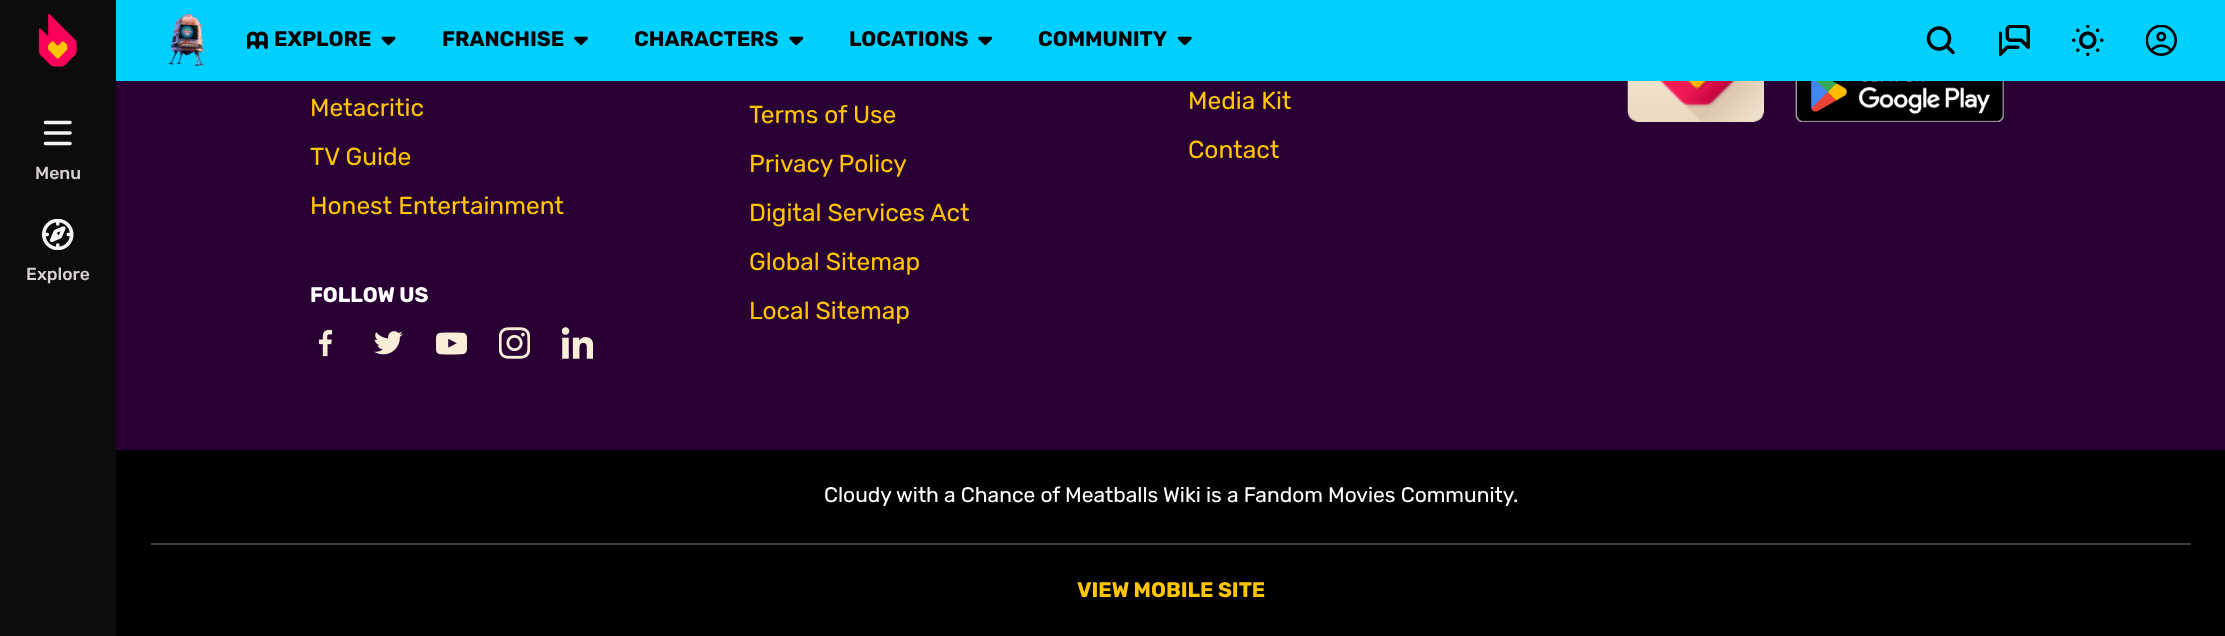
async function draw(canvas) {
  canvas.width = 2225;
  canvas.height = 636;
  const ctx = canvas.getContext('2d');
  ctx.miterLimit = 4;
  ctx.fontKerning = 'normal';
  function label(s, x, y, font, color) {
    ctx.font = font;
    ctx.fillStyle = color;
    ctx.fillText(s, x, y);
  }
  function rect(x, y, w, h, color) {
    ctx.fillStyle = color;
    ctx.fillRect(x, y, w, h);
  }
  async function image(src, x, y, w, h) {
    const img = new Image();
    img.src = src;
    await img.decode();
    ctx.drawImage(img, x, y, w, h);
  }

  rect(0, 0, 2225, 636, '#280033');
  rect(116, 0, 2109, 81, '#00d0ff');
  rect(0, 0, 116, 636, '#0c0c0c');
  await image('assets/img1.png', 38, 14, 39, 53);
  await image('assets/img2.png', 168, 14, 36, 53);
  await image('assets/img3.png', 247, 31, 21, 18);
  label('EXPLORE', 274, 46, 'bold 21px Rubik', '#000');
  await image('assets/img4.png', 381, 36, 15, 10);
  label('FRANCHISE', 442, 46, 'bold 21px Rubik', '#000');
  await image('assets/img5.png', 574, 36, 14, 10);
  label('CHARACTERS', 634, 46, 'bold 21px Rubik', '#000');
  await image('assets/img6.png', 789, 36, 15, 10);
  label('LOCATIONS', 849, 46, 'bold 21px Rubik', '#000');
  await image('assets/img6.png', 978, 36, 15, 10);
  label('COMMUNITY', 1038, 46, 'bold 21px Rubik', '#000');
  await image('assets/img7.png', 1177, 36, 15, 10);
  await image('assets/img8.png', 1926, 26, 29, 29);
  await image('assets/img9.png', 1999, 25, 31, 31);
  await image('assets/img10.png', 2072, 25, 32, 31);
  await image('assets/img11.png', 2146, 25, 31, 31);
  await image('assets/img12.png', 43, 120, 29, 26);
  label('Menu', 35, 179, '500 17.5px Rubik', '#d6d0d5');
  await image('assets/img13.png', 42, 219, 32, 31);
  label('Explore', 26, 280, '500 17.5px Rubik', '#d6d0d5');
  label('Metacritic', 310, 116, '24.5px Rubik', '#ffc500');
  label('TV Guide', 310, 165, '24.5px Rubik', '#ffc500');
  label('Honest Entertainment', 310, 214, '24.5px Rubik', '#ffc500');
  label('FOLLOW US', 310, 302, 'bold 21px Rubik', '#fff');
  await image('assets/img14.png', 318, 329, 15, 28);
  await image('assets/img15.png', 374, 331, 29, 24);
  await image('assets/img16.png', 436, 332, 31, 23);
  await image('assets/img17.png', 499, 327, 31, 32);
  await image('assets/img18.png', 562, 327, 31, 32);
  label('Terms of Use', 749, 123, '24.5px Rubik', '#ffc500');
  label('Privacy Policy', 749, 172, '24.5px Rubik', '#ffc500');
  label('Digital Services Act', 749, 221, '24.5px Rubik', '#ffc500');
  label('Global Sitemap', 749, 270, '24.5px Rubik', '#ffc500');
  label('Local Sitemap', 749, 319, '24.5px Rubik', '#ffc500');
  label('Media Kit', 1188, 109, '24.5px Rubik', '#ffc500');
  label('Contact', 1188, 158, '24.5px Rubik', '#ffc500');
  await image('assets/img19.png', 1627, 81, 137, 41);
  await image('assets/img20.png', 1795, 81, 209, 41);
  rect(116, 450, 2109, 186, '#000');
  label('Cloudy with a Chance of Meatballs Wiki is a Fandom Movies Community.', 824, 502, '21px Rubik', '#fff');
  rect(151, 543, 2040, 2, '#404040');
  label('VIEW MOBILE SITE', 1077, 597, 'bold 21px Rubik', '#ffc500');
}

draw(document.querySelector('canvas'));
